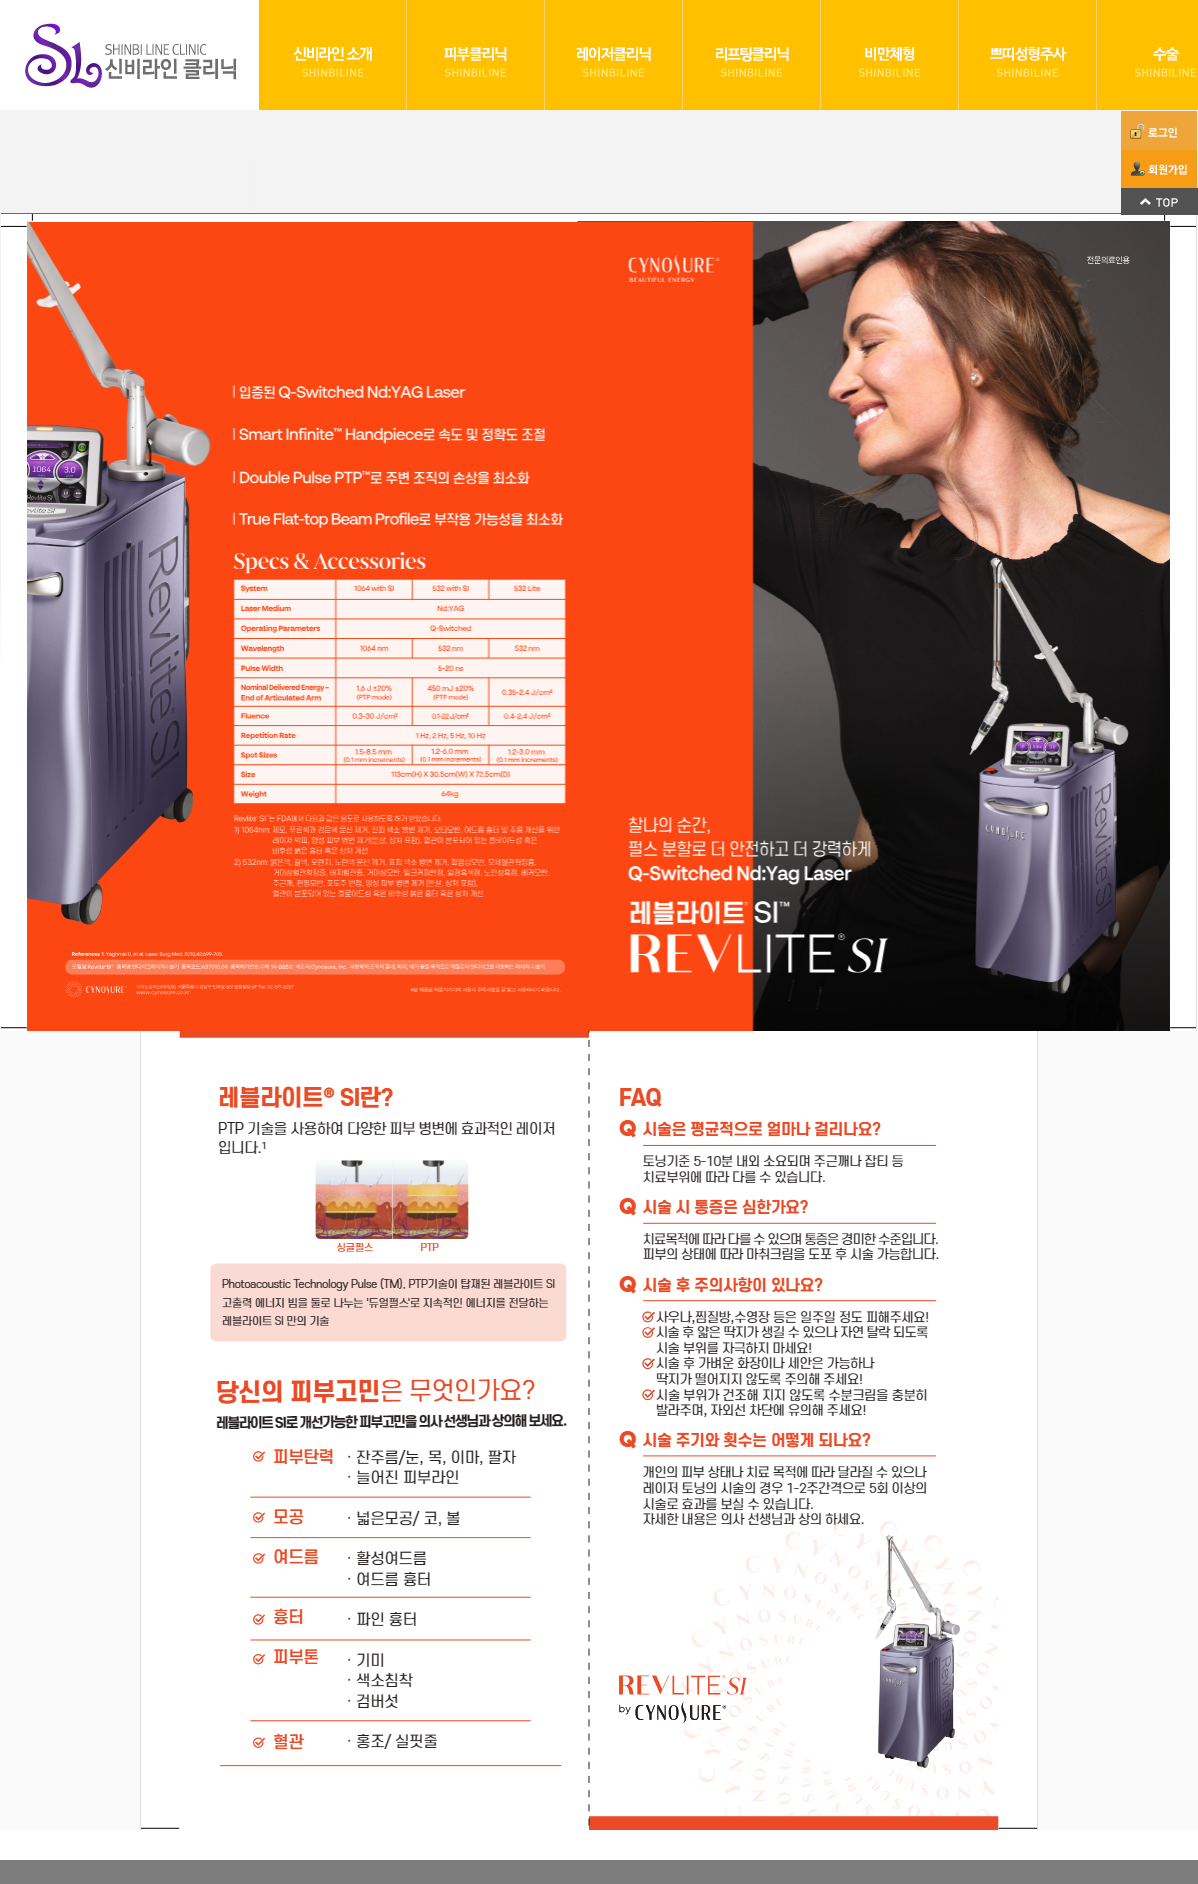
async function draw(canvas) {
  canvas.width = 1198;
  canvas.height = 1884;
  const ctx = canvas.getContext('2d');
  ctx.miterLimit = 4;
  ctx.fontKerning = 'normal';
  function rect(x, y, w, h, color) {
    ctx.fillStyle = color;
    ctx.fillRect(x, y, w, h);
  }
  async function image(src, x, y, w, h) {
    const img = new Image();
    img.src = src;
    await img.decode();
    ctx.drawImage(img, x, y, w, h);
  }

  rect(0, 0, 1198, 1884, '#fff');
  rect(259, 0, 939, 110, '#ffc000');
  await image('assets/img1.png', 0, 0, 259, 110);
  rect(406, 0, 1, 110, '#ffd177');
  await image('assets/img2.png', 293, 46, 79, 31);
  rect(544, 0, 1, 110, '#ffd177');
  await image('assets/img3.png', 444, 47, 63, 30);
  rect(682, 0, 1, 110, '#ffd177');
  await image('assets/img4.png', 576, 47, 75, 30);
  rect(820, 0, 1, 110, '#ffd177');
  await image('assets/img5.png', 716, 47, 73, 30);
  rect(958, 0, 1, 110, '#ffd177');
  await image('assets/img6.png', 859, 47, 61, 30);
  rect(1096, 0, 1, 110, '#ffd177');
  await image('assets/img7.png', 990, 47, 77, 30);
  await image('assets/img8.png', 1135, 47, 61, 30);
  await image('assets/img9.png', 0, 110, 1198, 553);
  await image('assets/img10.png', 1, 213, 1197, 818);
  await image('assets/img11.png', 0, 1031, 1198, 799);
  await image('assets/img12.png', 1121, 111, 76, 39);
  await image('assets/img13.png', 1121, 150, 76, 38);
  await image('assets/img14.png', 1121, 188, 77, 27);
  rect(0, 1860, 1198, 24, '#7d7d7d');
}

draw(document.querySelector('canvas'));
